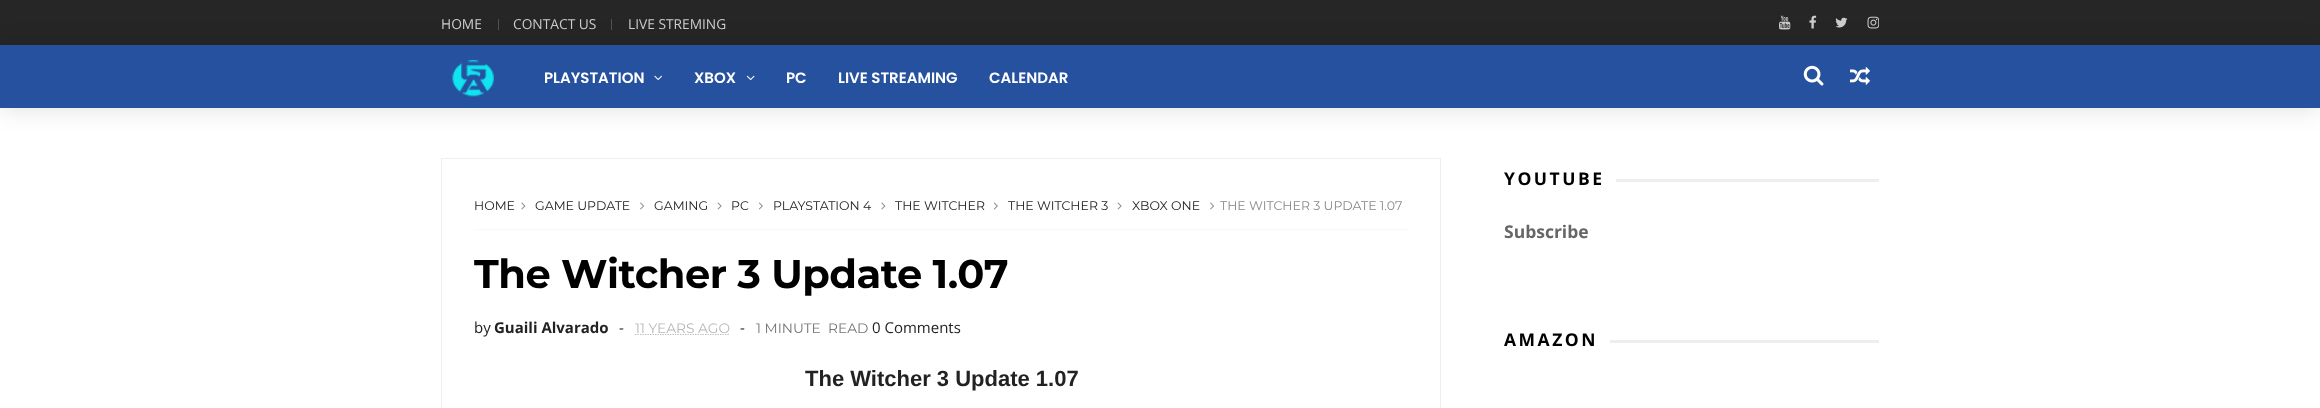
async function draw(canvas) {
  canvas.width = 2320;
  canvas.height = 408;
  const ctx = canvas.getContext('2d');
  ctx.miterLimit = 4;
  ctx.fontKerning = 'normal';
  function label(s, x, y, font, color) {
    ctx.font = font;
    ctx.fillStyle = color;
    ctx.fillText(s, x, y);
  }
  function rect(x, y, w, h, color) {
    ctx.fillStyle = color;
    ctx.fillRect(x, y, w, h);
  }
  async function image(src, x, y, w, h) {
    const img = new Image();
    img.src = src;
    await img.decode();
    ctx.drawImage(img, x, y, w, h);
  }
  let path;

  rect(0, 0, 2320, 408, '#fff');
  rect(0, 0, 2320, 45, '#262626');
  ctx.fillStyle = '#0000001f';
  ctx.filter = 'blur(12.5px)';
  ctx.beginPath();
  ctx.rect(0, 46, 2320, 63);
  ctx.fill();
  ctx.filter = 'none';
  label('HOME', 441, 29, '13.75px Open Sans', '#ccc');
  rect(498, 19, 1, 11, '#515151');
  label('CONTACT US', 513, 29, '13.75px Open Sans', '#ccc');
  rect(611, 19, 1, 11, '#515151');
  label('LIVE STREMING', 628, 29, '13.75px Open Sans', '#ccc');
  await image('assets/img1.png', 1779, 15, 12, 15);
  await image('assets/img2.png', 1809, 15, 8, 14);
  await image('assets/img3.png', 1835, 17, 13, 11);
  await image('assets/img4.png', 1867, 16, 12, 13);
  rect(0, 45, 2320, 63, '#26519e');
  await image('assets/img5.png', 452, 59, 42, 38);
  label('PLAYSTATION', 544, 83, '600 15px Poppins', '#fff');
  await image('assets/img6.png', 654, 75, 8, 6);
  label('XBOX', 694, 83, '600 15px Poppins', '#fff');
  await image('assets/img7.png', 746, 75, 9, 6);
  label('PC', 786, 83, '600 15px Poppins', '#fff');
  label('LIVE STREAMING', 838, 83, '600 15px Poppins', '#fff');
  label('CALENDAR', 989, 83, '600 15px Poppins', '#fff');
  await image('assets/img8.png', 1803, 65, 21, 21);
  await image('assets/img9.png', 1850, 67, 20, 18);
  ctx.strokeStyle = '#eee';
  ctx.strokeRect(441.5, 158.5, 999, 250);
  label('HOME', 474, 210, '12.5px Montserrat', '#222');
  await image('assets/img10.png', 521, 202, 5, 8);
  label('GAME UPDATE', 535, 210, '12.5px Montserrat', '#222');
  await image('assets/img11.png', 640, 202, 4, 8);
  label('GAMING', 654, 210, '12.5px Montserrat', '#222');
  await image('assets/img12.png', 717, 202, 5, 8);
  label('PC', 731, 210, '12.5px Montserrat', '#222');
  await image('assets/img13.png', 758, 202, 5, 8);
  label('PLAYSTATION 4', 773, 210, '12.5px Montserrat', '#222');
  await image('assets/img10.png', 881, 202, 5, 8);
  label('THE WITCHER', 895, 210, '12.5px Montserrat', '#222');
  await image('assets/img13.png', 993, 202, 5, 8);
  label('THE WITCHER 3', 1008, 210, '12.5px Montserrat', '#222');
  await image('assets/img12.png', 1117, 202, 5, 8);
  label('XBOX ONE', 1132, 210, '12.5px Montserrat', '#222');
  await image('assets/img11.png', 1210, 202, 4, 8);
  label('THE WITCHER 3 UPDATE 1.07', 1220, 210, '12.5px Montserrat', '#888');
  rect(474, 229, 935, 1, '#f8f8f8');
  ctx.letterSpacing = '-0.5px';
  label('The Witcher 3 Update 1.07', 474, 288, 'bold 40px Montserrat', '#000');
  ctx.letterSpacing = '0px';
  label('by', 474, 333, '15px Open Sans', '#222');
  label('Guaili Alvarado', 494, 333, 'bold 15px Open Sans', '#222');
  label('-', 619, 333, '15px Open Sans', '#222');
  path = new Path2D('M635 334.5H730');
  ctx.strokeStyle = '#b7b7b7';
  ctx.lineWidth = 1.2;
  ctx.setLineDash([1.25, 1.25]);
  ctx.stroke(path);
  label('11 YEARS AGO', 635, 333, '13.75px Montserrat', '#b7b7b7');
  label('-', 740, 333, '15px Open Sans', '#222');
  label('1 MINUTE', 756, 333, '13.75px Montserrat', '#757575');
  label('READ', 828, 333, '13.75px Montserrat', '#757575');
  label('0 Comments', 872, 333, '15px Open Sans', '#222');
  label('The Witcher 3 Update 1.07', 805, 386, 'bold 22px Liberation Sans', '#222');
  ctx.letterSpacing = '2.5px';
  label('YOUTUBE', 1504, 185, 'bold 17.5px Open Sans', '#000');
  rect(1616, 179, 263, 3, '#eee');
  ctx.letterSpacing = '0px';
  label('Subscribe', 1504, 238, 'bold 17.5px Open Sans', '#666');
  ctx.letterSpacing = '2.5px';
  label('AMAZON', 1504, 346, 'bold 17.5px Open Sans', '#000');
  rect(1610, 340, 269, 3, '#eee');
}

draw(document.querySelector('canvas'));
